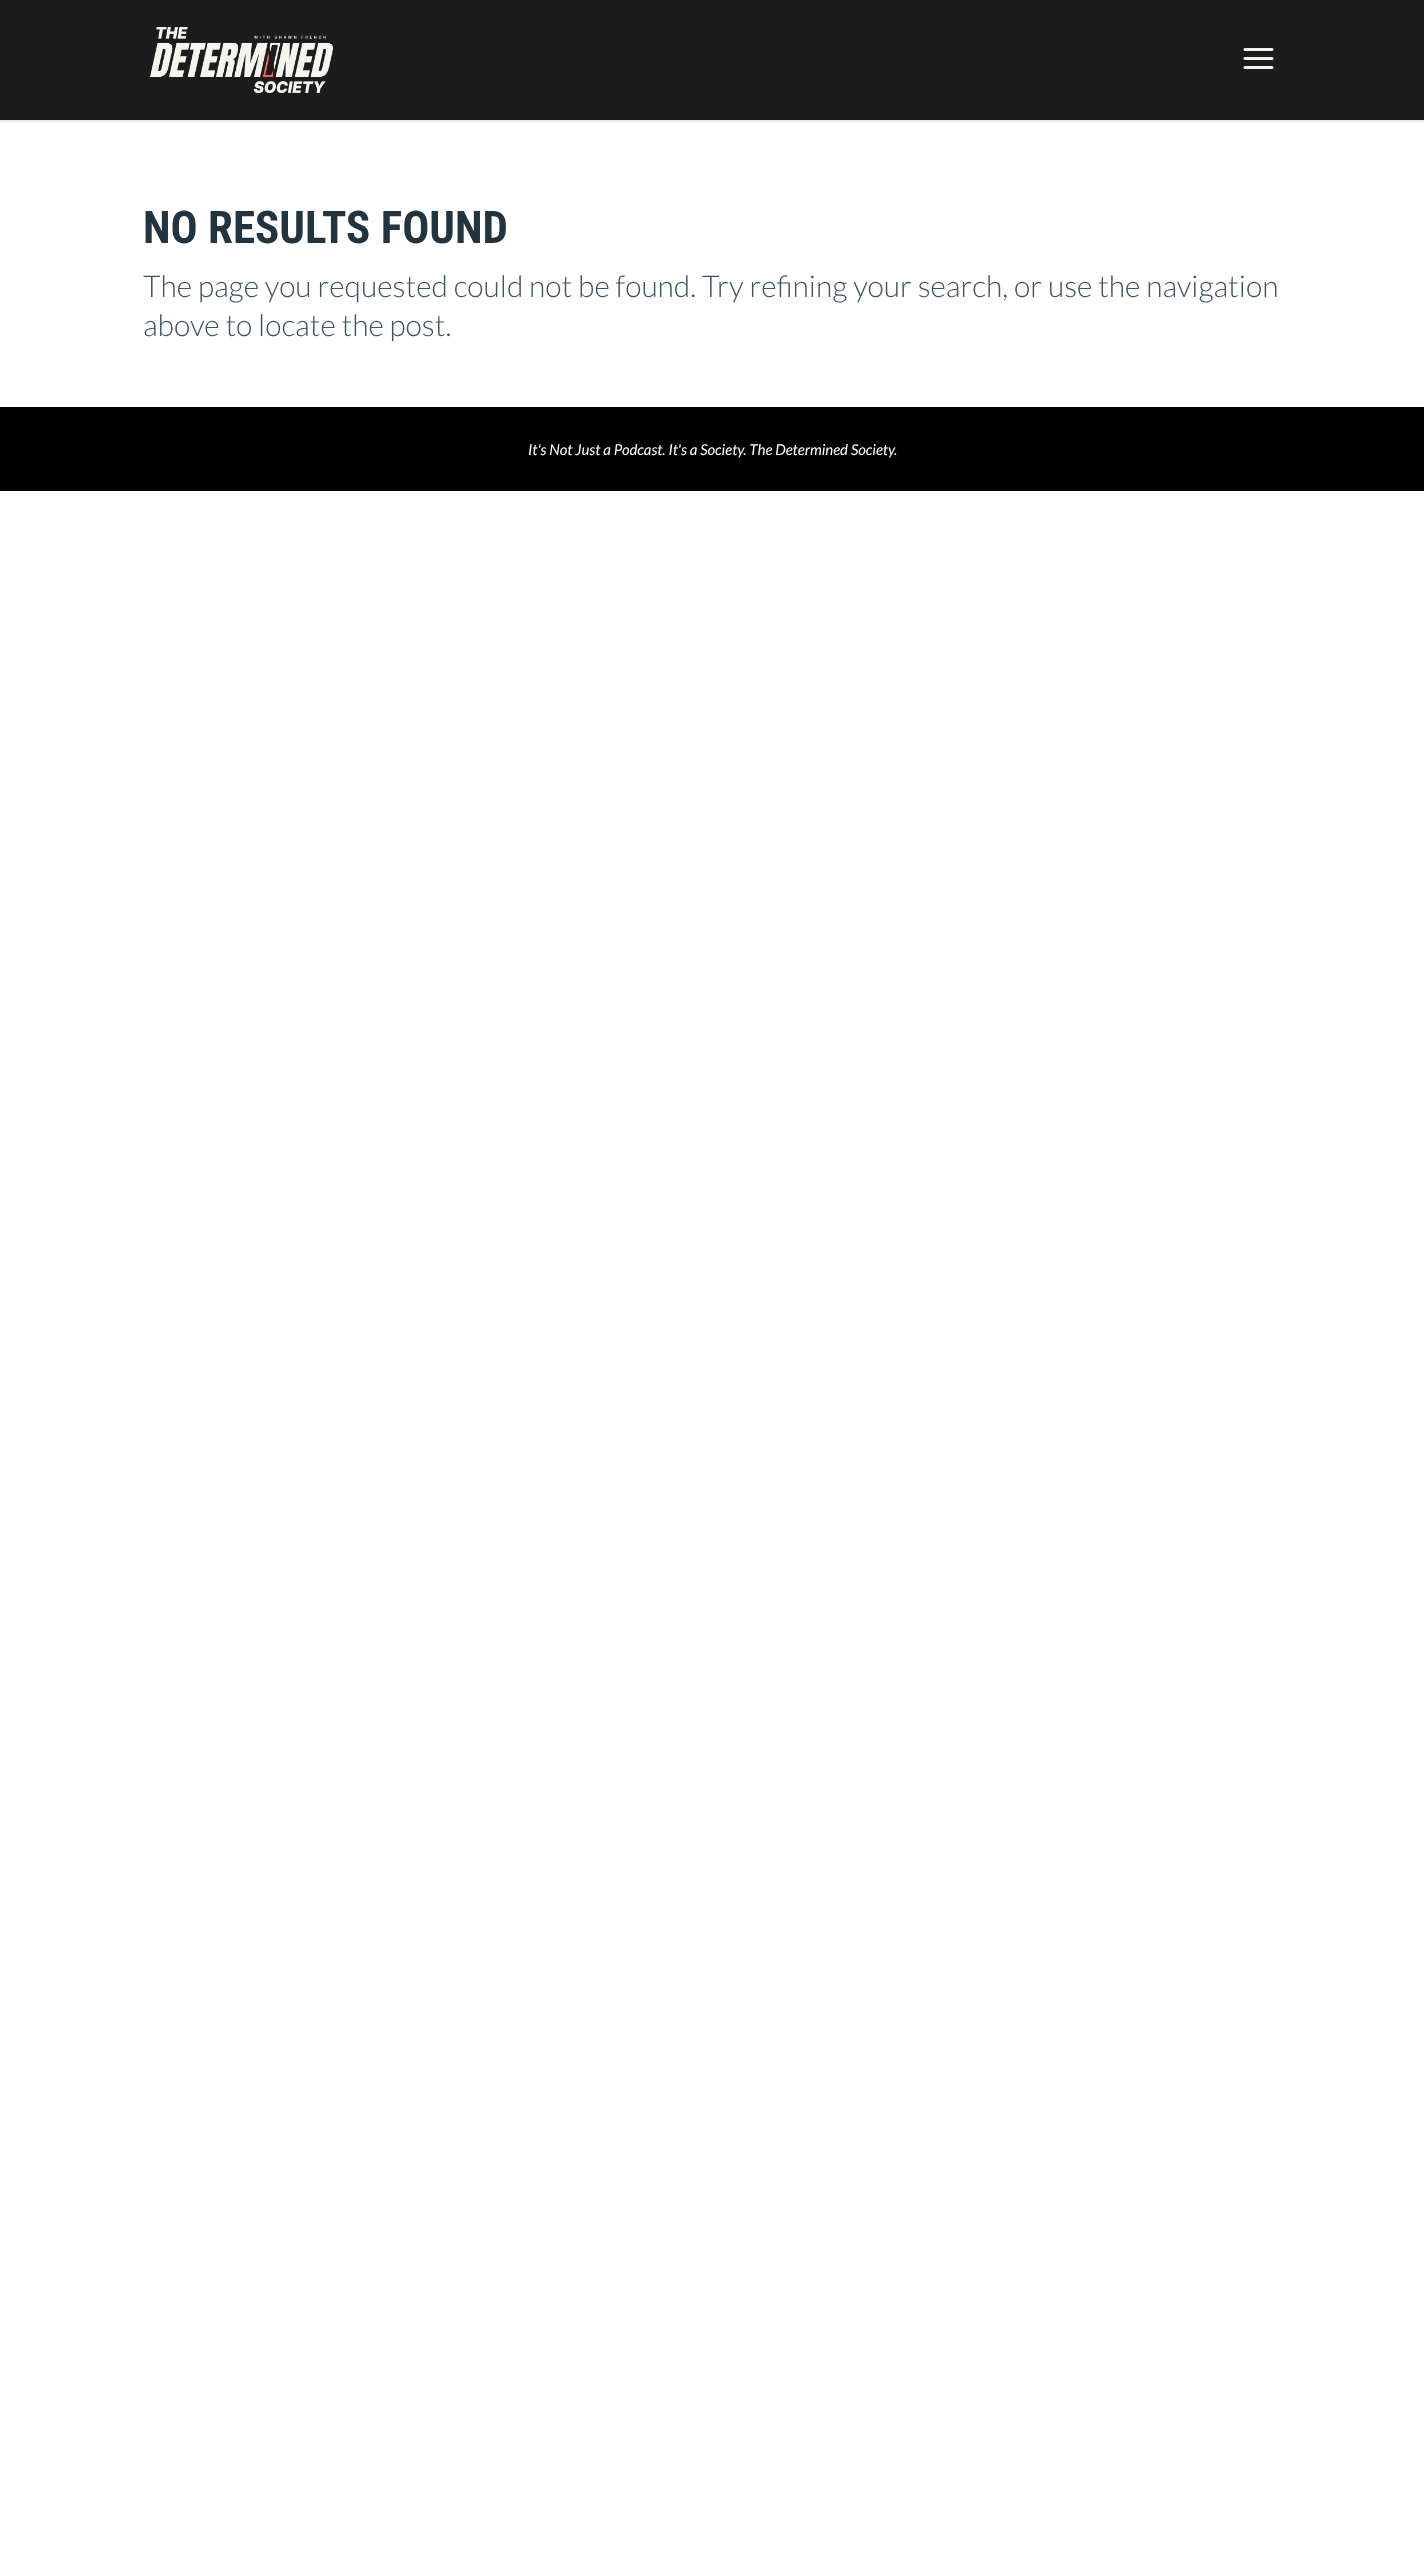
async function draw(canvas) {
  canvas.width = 1424;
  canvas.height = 2549;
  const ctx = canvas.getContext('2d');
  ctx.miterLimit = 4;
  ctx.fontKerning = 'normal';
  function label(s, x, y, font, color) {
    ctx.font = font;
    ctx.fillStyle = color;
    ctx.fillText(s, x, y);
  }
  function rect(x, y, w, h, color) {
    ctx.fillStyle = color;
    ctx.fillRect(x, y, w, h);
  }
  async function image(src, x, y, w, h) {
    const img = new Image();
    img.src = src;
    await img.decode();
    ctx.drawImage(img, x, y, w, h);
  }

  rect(0, 0, 1424, 2549, '#fff');
  rect(0, 120, 1424, 2, '#e6e6e6');
  rect(0, 0, 1424, 120, '#1c1c1c');
  await image('assets/img1.png', 150, 27, 183, 66);
  await image('assets/img2.png', 1243, 48, 31, 21);
  label('NO RESULTS FOUND', 143, 243, 'bold 45px Roboto Condensed', '#213440');
  label('The page you requested could not be found. Try refining your search, or use the navigation', 143, 297, '300 30px Lato', '#3e5461');
  label('above to locate the post.', 143, 336, '300 30px Lato', '#3e5461');
  rect(0, 407, 1424, 84, '#000');
  label('It\'s Not Just a Podcast. It\'s a Society. The Determined Society.', 528, 455, 'italic 15px Lato', '#fff');
}

draw(document.querySelector('canvas'));
